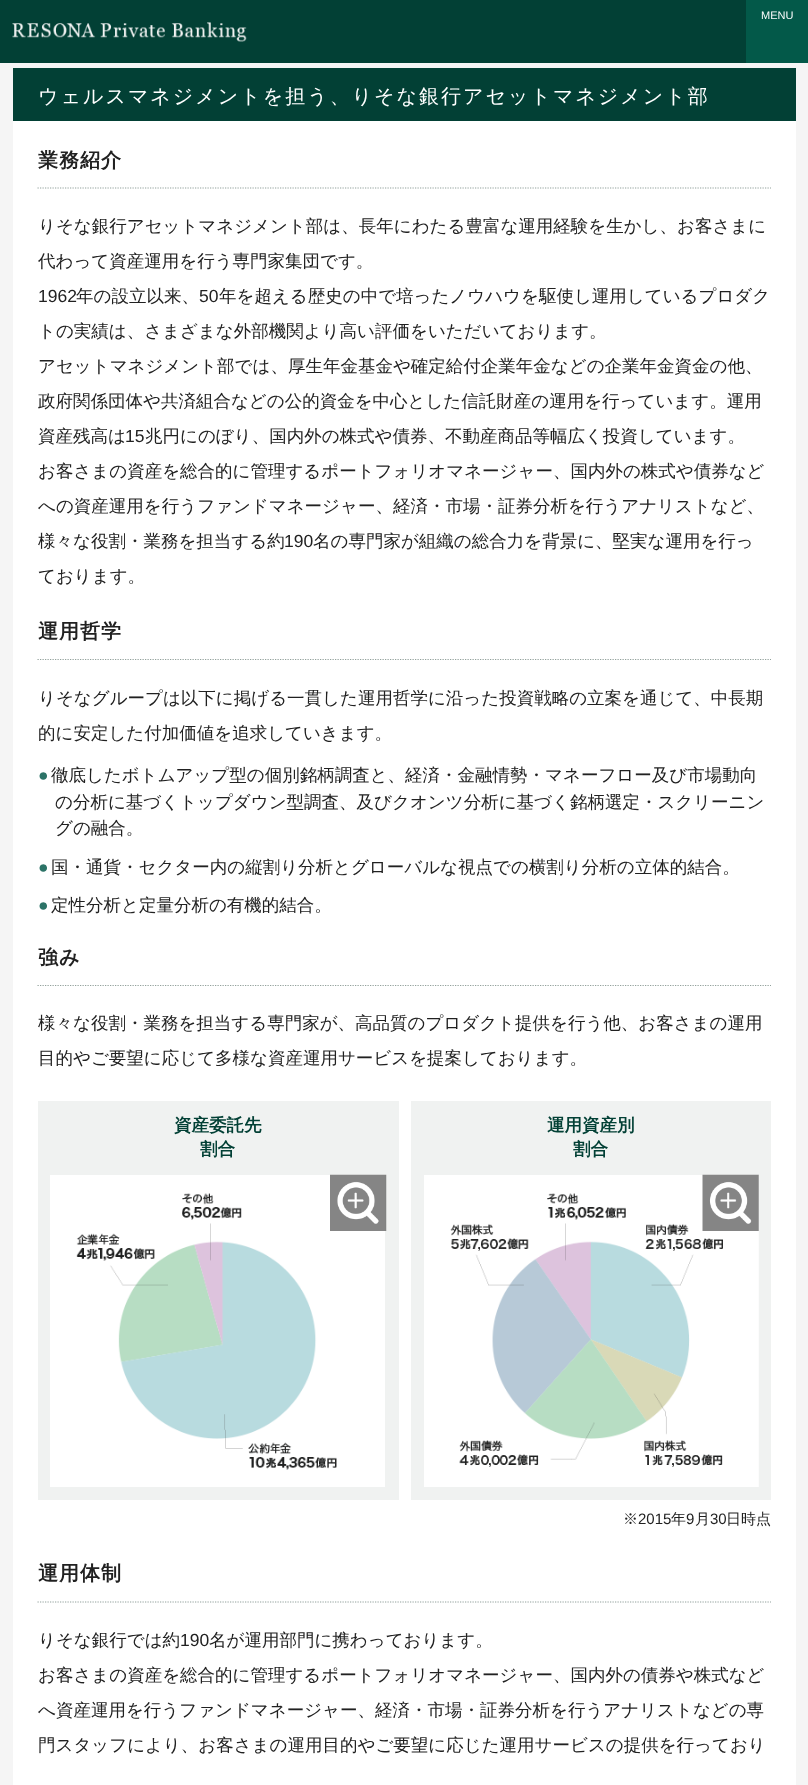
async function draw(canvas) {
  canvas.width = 808;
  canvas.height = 1785;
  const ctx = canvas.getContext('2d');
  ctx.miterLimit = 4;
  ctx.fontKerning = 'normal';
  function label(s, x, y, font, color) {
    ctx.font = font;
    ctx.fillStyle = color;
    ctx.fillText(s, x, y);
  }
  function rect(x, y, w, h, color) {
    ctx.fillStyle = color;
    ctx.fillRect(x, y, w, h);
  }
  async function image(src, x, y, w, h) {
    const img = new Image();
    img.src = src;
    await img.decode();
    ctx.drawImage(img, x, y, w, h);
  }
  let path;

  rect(0, 0, 808, 1785, '#f5f5f5');
  rect(0, 0, 746, 63, '#024035');
  rect(746, 0, 62, 63, '#035949');
  label('MENU', 761, 19, '11px Liberation Sans', '#fff');
  await image('assets/img1.png', 12, 22, 235, 20);
  rect(13, 68, 783, 53, '#024035');
  ctx.letterSpacing = '2px';
  label('ウェルスマネジメントを担う、りそな銀行アセットマネジメント部', 38, 103, '500 20px WenQuanYi Zen Hei', '#fff');
  rect(13, 121, 783, 1664, '#fff');
  path = new Path2D('M37.5 188H771');
  ctx.strokeStyle = '#92a19c';
  ctx.lineWidth = 1.2;
  ctx.setLineDash([1.25, 1.25]);
  ctx.stroke(path);
  ctx.letterSpacing = '1px';
  label('業務紹介', 38, 167, 'bold 20px WenQuanYi Zen Hei', '#212121');
  ctx.letterSpacing = '0px';
  label('りそな銀行アセットマネジメント部は、長年にわたる豊富な運用経験を生かし、お客さまに', 38, 232, '500 17.5px WenQuanYi Zen Hei', '#212121');
  label('代わって資産運用を行う専門家集団です。', 38, 267, '500 17.5px WenQuanYi Zen Hei', '#212121');
  label('1962', 38, 302, '17.5px Liberation Sans', '#212121');
  label('年の設立以来、', 76, 302, '500 17.5px WenQuanYi Zen Hei', '#212121');
  label('50', 199, 302, '17.5px Liberation Sans', '#212121');
  label('年を超える歴史の中で培ったノウハウを駆使し運用しているプロダク', 219, 302, '500 17.5px WenQuanYi Zen Hei', '#212121');
  label('トの実績は、さまざまな外部機関より高い評価をいただいております。', 38, 337, '500 17.5px WenQuanYi Zen Hei', '#212121');
  label('アセットマネジメント部では、厚生年金基金や確定給付企業年金などの企業年金資金の他、', 38, 372, '500 17.5px WenQuanYi Zen Hei', '#212121');
  label('政府関係団体や共済組合などの公的資金を中心とした信託財産の運用を行っています。運用', 38, 407, '500 17.5px WenQuanYi Zen Hei', '#212121');
  label('資産残高は', 38, 442, '500 17.5px WenQuanYi Zen Hei', '#212121');
  label('15', 125, 442, '17.5px Liberation Sans', '#212121');
  label('兆円にのぼり、国内外の株式や債券、不動産商品等幅広く投資しています。', 145, 442, '500 17.5px WenQuanYi Zen Hei', '#212121');
  label('お客さまの資産を総合的に管理するポートフォリオマネージャー、国内外の株式や債券など', 38, 477, '500 17.5px WenQuanYi Zen Hei', '#212121');
  label('への資産運用を行うファンドマネージャー、経済・市場・証券分析を行うアナリストなど、', 38, 512, '500 17.5px WenQuanYi Zen Hei', '#212121');
  label('様々な役割・業務を担当する約', 38, 547, '500 17.5px WenQuanYi Zen Hei', '#212121');
  label('190', 284, 547, '17.5px Liberation Sans', '#212121');
  label('名の専門家が組織の総合力を背景に、堅実な運用を行っ', 313, 547, '500 17.5px WenQuanYi Zen Hei', '#212121');
  label('ております。', 38, 582, '500 17.5px WenQuanYi Zen Hei', '#212121');
  path = new Path2D('M37.5 659.5H771');
  ctx.stroke(path);
  ctx.letterSpacing = '1px';
  label('運用哲学', 38, 638, 'bold 20px WenQuanYi Zen Hei', '#212121');
  ctx.letterSpacing = '0px';
  label('りそなグループは以下に掲げる一貫した運用哲学に沿った投資戦略の立案を通じて、中長期', 38, 704, '500 17.5px WenQuanYi Zen Hei', '#212121');
  label('的に安定した付加価値を追求していきます。', 38, 739, '500 17.5px WenQuanYi Zen Hei', '#212121');
  label('●', 38, 781, '17.5px Liberation Sans', '#2c7367');
  label('徹底したボトムアップ型の個別銘柄調査と、経済・金融情勢・マネーフロー及び市場動向', 51, 781, '500 17.5px WenQuanYi Zen Hei', '#212121');
  label('の分析に基づくトップダウン型調査、及びクオンツ分析に基づく銘柄選定・スクリーニン', 55, 808, '500 17.5px WenQuanYi Zen Hei', '#212121');
  label('グの融合。', 55, 834, '500 17.5px WenQuanYi Zen Hei', '#212121');
  label('●', 38, 873, '17.5px Liberation Sans', '#2c7367');
  label('国・通貨・セクター内の縦割り分析とグローバルな視点での横割り分析の立体的結合。', 51, 873, '500 17.5px WenQuanYi Zen Hei', '#212121');
  label('●', 38, 911, '17.5px Liberation Sans', '#2c7367');
  label('定性分析と定量分析の有機的結合。', 51, 911, '500 17.5px WenQuanYi Zen Hei', '#212121');
  path = new Path2D('M37.5 985.5H771');
  ctx.stroke(path);
  ctx.letterSpacing = '1px';
  label('強み', 38, 964, 'bold 20px WenQuanYi Zen Hei', '#212121');
  ctx.letterSpacing = '0px';
  label('様々な役割・業務を担当する専門家が、高品質のプロダクト提供を行う他、お客さまの運用', 38, 1029, '500 17.5px WenQuanYi Zen Hei', '#212121');
  label('目的やご要望に応じて多様な資産運用サービスを提案しております。', 38, 1064, '500 17.5px WenQuanYi Zen Hei', '#212121');
  rect(38, 1101, 361, 399, '#f0f2f1');
  label('資産委託先', 174, 1131, 'bold 17.5px WenQuanYi Zen Hei', '#024035');
  label('割合', 200, 1155, 'bold 17.5px WenQuanYi Zen Hei', '#024035');
  await image('assets/img3.png', 50, 1175, 335, 312);
  await image('assets/img2.png', 330, 1174, 57, 57);
  rect(411, 1101, 360, 399, '#f0f2f1');
  label('運用資産別', 547, 1131, 'bold 17.5px WenQuanYi Zen Hei', '#024035');
  label('割合', 573, 1155, 'bold 17.5px WenQuanYi Zen Hei', '#024035');
  await image('assets/img5.png', 424, 1175, 335, 312);
  await image('assets/img4.png', 702, 1174, 57, 57);
  label('※', 623, 1524, '500 15px WenQuanYi Zen Hei', '#212121');
  label('2015', 638, 1524, '15px Liberation Sans', '#212121');
  label('年', 671, 1524, '500 15px WenQuanYi Zen Hei', '#212121');
  label('9', 686, 1524, '15px Liberation Sans', '#212121');
  label('月', 695, 1524, '500 15px WenQuanYi Zen Hei', '#212121');
  label('30', 710, 1524, '15px Liberation Sans', '#212121');
  label('日時点', 726, 1524, '500 15px WenQuanYi Zen Hei', '#212121');
  path = new Path2D('M37.5 1602H771');
  ctx.stroke(path);
  ctx.letterSpacing = '1px';
  label('運用体制', 38, 1580, 'bold 20px WenQuanYi Zen Hei', '#212121');
  ctx.letterSpacing = '0px';
  label('りそな銀行では約', 38, 1646, '500 17.5px WenQuanYi Zen Hei', '#212121');
  label('190', 180, 1646, '17.5px Liberation Sans', '#212121');
  label('名が運用部門に携わっております。', 209, 1646, '500 17.5px WenQuanYi Zen Hei', '#212121');
  label('お客さまの資産を総合的に管理するポートフォリオマネージャー、国内外の債券や株式など', 38, 1681, '500 17.5px WenQuanYi Zen Hei', '#212121');
  label('へ資産運用を行うファンドマネージャー、経済・市場・証券分析を行うアナリストなどの専', 38, 1716, '500 17.5px WenQuanYi Zen Hei', '#212121');
  label('門スタッフにより、お客さまの運用目的やご要望に応じた運用サービスの提供を行っており', 38, 1751, '500 17.5px WenQuanYi Zen Hei', '#212121');
}

draw(document.querySelector('canvas'));
